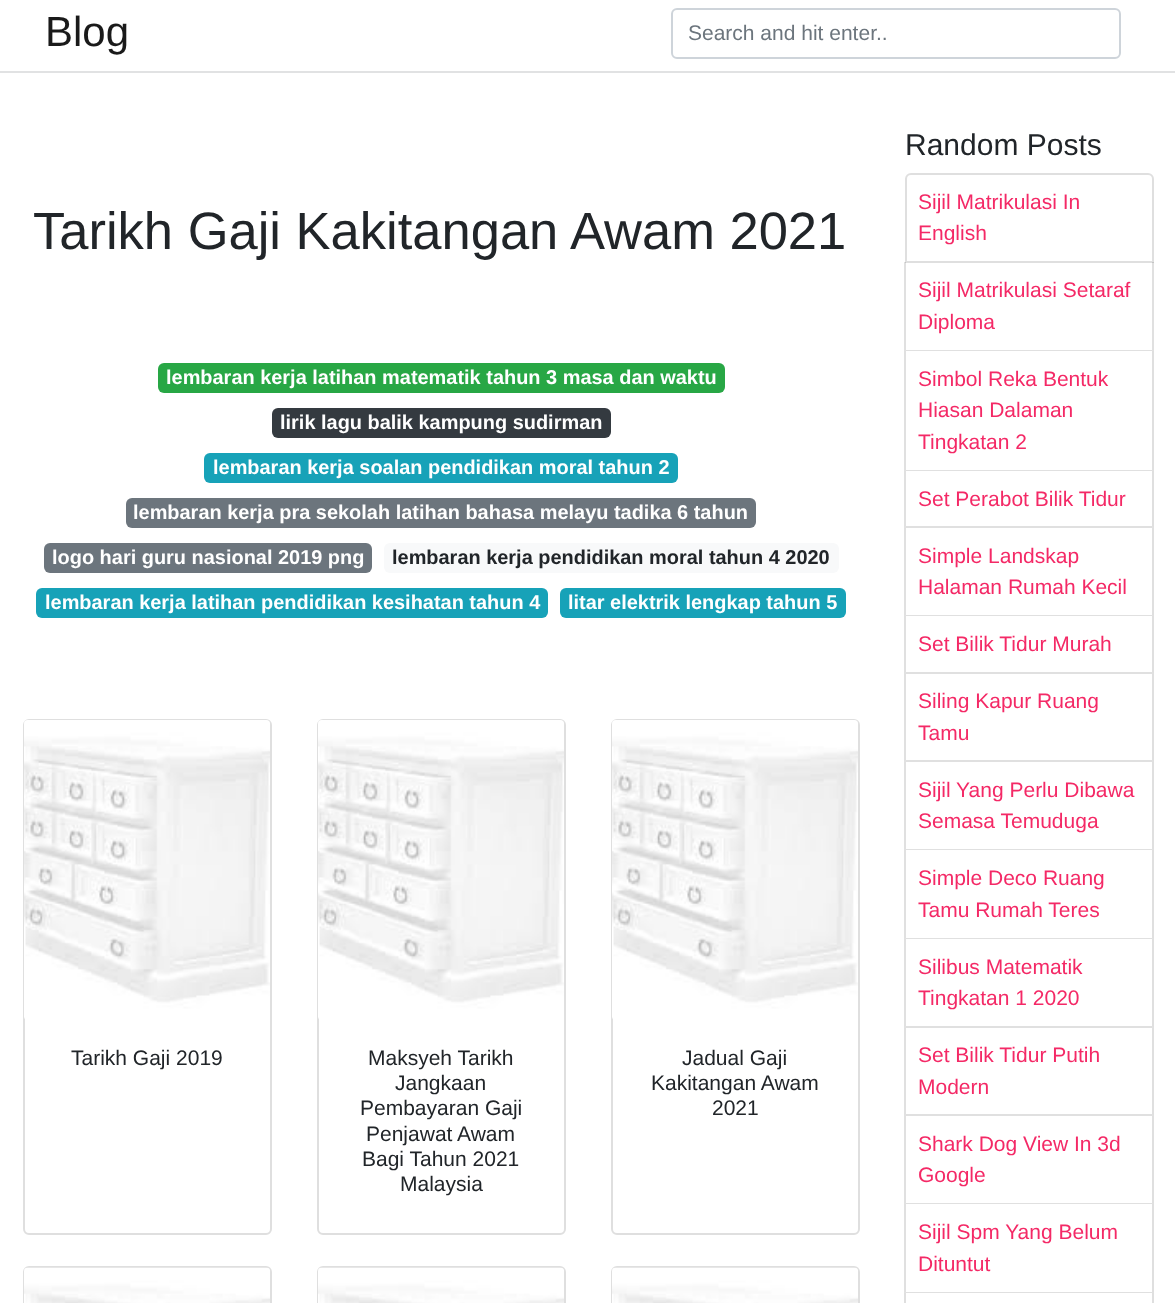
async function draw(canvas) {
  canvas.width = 1175;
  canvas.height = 1303;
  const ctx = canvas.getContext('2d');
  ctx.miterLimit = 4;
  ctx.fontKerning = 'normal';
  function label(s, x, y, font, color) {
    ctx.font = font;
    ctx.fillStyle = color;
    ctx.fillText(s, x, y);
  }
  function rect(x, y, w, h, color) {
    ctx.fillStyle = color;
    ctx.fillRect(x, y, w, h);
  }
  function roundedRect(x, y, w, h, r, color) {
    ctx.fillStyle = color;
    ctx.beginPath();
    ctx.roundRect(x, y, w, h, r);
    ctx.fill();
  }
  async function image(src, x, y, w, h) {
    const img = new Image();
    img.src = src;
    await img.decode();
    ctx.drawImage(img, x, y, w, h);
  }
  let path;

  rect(0, 0, 1175, 1303, '#fff');
  rect(0, 71, 1175, 2, '#e1e2e3');
  label('Blog', 45, 46, '42px Liberation Sans', '#1a1a1a');
  ctx.beginPath();
  ctx.roundRect(672, 9, 448, 49, 5);
  ctx.strokeStyle = '#ced4da';
  ctx.lineWidth = 2;
  ctx.stroke();
  label('Search and hit enter..', 688, 40, '21px Liberation Sans', '#6c757d');
  label('Tarikh Gaji Kakitangan Awam 2021', 33, 249, '52.5px Liberation Sans', '#212529');
  roundedRect(158, 363, 567, 30, 6, '#28a745');
  label('lembaran kerja latihan matematik tahun 3 masa dan waktu', 166, 384, 'bold 19.95px Liberation Sans', '#fff');
  roundedRect(272, 408, 339, 30, 6, '#343a40');
  label('lirik lagu balik kampung sudirman', 280, 429, 'bold 19.95px Liberation Sans', '#fff');
  roundedRect(204, 453, 474, 30, 6, '#17a2b8');
  label('lembaran kerja soalan pendidikan moral tahun 2', 213, 474, 'bold 19.95px Liberation Sans', '#fff');
  roundedRect(126, 498, 630, 30, 6, '#6c757d');
  label('lembaran kerja pra sekolah latihan bahasa melayu tadika 6 tahun', 133, 519, 'bold 19.95px Liberation Sans', '#fff');
  roundedRect(44, 543, 328, 30, 6, '#6c757d');
  label('logo hari guru nasional 2019 png', 52, 564, 'bold 19.95px Liberation Sans', '#fff');
  roundedRect(384, 543, 455, 30, 6, '#f8f9fa');
  label('lembaran kerja pendidikan moral tahun 4 2020', 392, 564, 'bold 19.95px Liberation Sans', '#212529');
  roundedRect(36, 588, 512, 30, 6, '#17a2b8');
  label('lembaran kerja latihan pendidikan kesihatan tahun 4', 45, 609, 'bold 19.95px Liberation Sans', '#fff');
  roundedRect(560, 588, 286, 30, 6, '#17a2b8');
  label('litar elektrik lengkap tahun 5', 568, 609, 'bold 19.95px Liberation Sans', '#fff');
  ctx.beginPath();
  ctx.roundRect(24, 720, 247, 514, 5);
  ctx.strokeStyle = '#dfdfdf';
  ctx.stroke();
  await image('assets/img1.png', 24, 720, 246, 299);
  label('Tarikh Gaji 2019', 71, 1065, '21px Liberation Sans', '#212529');
  ctx.beginPath();
  ctx.roundRect(318, 720, 247, 514, 5);
  ctx.stroke();
  await image('assets/img1.png', 318, 720, 246, 299);
  label('Maksyeh Tarikh', 368, 1065, '21px Liberation Sans', '#212529');
  label('Jangkaan', 395, 1090, '21px Liberation Sans', '#212529');
  label('Pembayaran Gaji', 360, 1115, '21px Liberation Sans', '#212529');
  label('Penjawat Awam', 366, 1141, '21px Liberation Sans', '#212529');
  label('Bagi Tahun 2021', 362, 1166, '21px Liberation Sans', '#212529');
  label('Malaysia', 400, 1191, '21px Liberation Sans', '#212529');
  ctx.beginPath();
  ctx.roundRect(612, 720, 247, 514, 5);
  ctx.stroke();
  await image('assets/img1.png', 612, 720, 246, 299);
  label('Jadual Gaji', 682, 1065, '21px Liberation Sans', '#212529');
  label('Kakitangan Awam', 651, 1090, '21px Liberation Sans', '#212529');
  label('2021', 712, 1115, '21px Liberation Sans', '#212529');
  ctx.beginPath();
  ctx.roundRect(24, 1267, 247, 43, 5);
  ctx.stroke();
  await image('assets/img2.png', 24, 1267, 246, 36);
  ctx.beginPath();
  ctx.roundRect(318, 1267, 247, 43, 5);
  ctx.stroke();
  await image('assets/img2.png', 318, 1267, 246, 36);
  ctx.beginPath();
  ctx.roundRect(612, 1267, 247, 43, 5);
  ctx.stroke();
  await image('assets/img2.png', 612, 1267, 246, 36);
  label('Random Posts', 905, 155, '30px Liberation Sans', '#212529');
  ctx.beginPath();
  ctx.roundRect(906, 174, 247, 88, [5, 5, 0, 0]);
  ctx.stroke();
  label('Sijil Matrikulasi In', 918, 209, '21px Liberation Sans', '#f42966');
  label('English', 918, 240, '21px Liberation Sans', '#f42966');
  ctx.fillStyle = '#0000001f';
  path = new Path2D('M1154 262V351L1152 350V262Z');
  ctx.fill(path);
  path = new Path2D('M1154 351H904L906 350H1152Z');
  ctx.fill(path);
  path = new Path2D('M904 351V262H906V350Z');
  ctx.fill(path);
  label('Sijil Matrikulasi Setaraf', 918, 297, '21px Liberation Sans', '#f42966');
  label('Diploma', 918, 329, '21px Liberation Sans', '#f42966');
  ctx.fillStyle = '#dfdfdf';
  path = new Path2D('M1154 351V471L1152 470V351Z');
  ctx.fill(path);
  ctx.fillStyle = '#0000001f';
  path = new Path2D('M1154 471H904L906 470H1152Z');
  ctx.fill(path);
  path = new Path2D('M904 471V351H906V470Z');
  ctx.fill(path);
  label('Simbol Reka Bentuk', 918, 386, '21px Liberation Sans', '#f42966');
  label('Hiasan Dalaman', 918, 417, '21px Liberation Sans', '#f42966');
  label('Tingkatan 2', 918, 449, '21px Liberation Sans', '#f42966');
  ctx.fillStyle = '#dfdfdf';
  path = new Path2D('M1154 471V528L1152 526V471Z');
  ctx.fill(path);
  ctx.fillStyle = '#0000001f';
  path = new Path2D('M1154 528H904L906 526H1152Z');
  ctx.fill(path);
  path = new Path2D('M904 528V471H906V526Z');
  ctx.fill(path);
  label('Set Perabot Bilik Tidur', 918, 506, '21px Liberation Sans', '#f42966');
  ctx.fillStyle = '#dfdfdf';
  path = new Path2D('M1154 528V616L1152 615V528Z');
  ctx.fill(path);
  ctx.fillStyle = '#0000001f';
  path = new Path2D('M1154 616H904L906 615H1152Z');
  ctx.fill(path);
  path = new Path2D('M904 616V528H906V615Z');
  ctx.fill(path);
  label('Simple Landskap', 918, 563, '21px Liberation Sans', '#f42966');
  label('Halaman Rumah Kecil', 918, 594, '21px Liberation Sans', '#f42966');
  ctx.fillStyle = '#dfdfdf';
  path = new Path2D('M1154 616V674L1152 672V616Z');
  ctx.fill(path);
  ctx.fillStyle = '#0000001f';
  path = new Path2D('M1154 674H904L906 672H1152Z');
  ctx.fill(path);
  path = new Path2D('M904 674V616H906V672Z');
  ctx.fill(path);
  label('Set Bilik Tidur Murah', 918, 651, '21px Liberation Sans', '#f42966');
  ctx.fillStyle = '#dfdfdf';
  path = new Path2D('M1154 674V762L1152 760V674Z');
  ctx.fill(path);
  ctx.fillStyle = '#0000001f';
  path = new Path2D('M1154 762H904L906 760H1152Z');
  ctx.fill(path);
  path = new Path2D('M904 762V674H906V760Z');
  ctx.fill(path);
  label('Siling Kapur Ruang', 918, 708, '21px Liberation Sans', '#f42966');
  label('Tamu', 918, 740, '21px Liberation Sans', '#f42966');
  ctx.fillStyle = '#dfdfdf';
  path = new Path2D('M1154 762V850L1152 849V762Z');
  ctx.fill(path);
  ctx.fillStyle = '#0000001f';
  path = new Path2D('M1154 850H904L906 849H1152Z');
  ctx.fill(path);
  path = new Path2D('M904 850V762H906V849Z');
  ctx.fill(path);
  label('Sijil Yang Perlu Dibawa', 918, 797, '21px Liberation Sans', '#f42966');
  label('Semasa Temuduga', 918, 828, '21px Liberation Sans', '#f42966');
  ctx.fillStyle = '#dfdfdf';
  path = new Path2D('M1154 850V939L1152 938V850Z');
  ctx.fill(path);
  ctx.fillStyle = '#0000001f';
  path = new Path2D('M1154 939H904L906 938H1152Z');
  ctx.fill(path);
  path = new Path2D('M904 939V850H906V938Z');
  ctx.fill(path);
  label('Simple Deco Ruang', 918, 885, '21px Liberation Sans', '#f42966');
  label('Tamu Rumah Teres', 918, 917, '21px Liberation Sans', '#f42966');
  ctx.fillStyle = '#dfdfdf';
  path = new Path2D('M1154 939V1028L1152 1026V939Z');
  ctx.fill(path);
  ctx.fillStyle = '#0000001f';
  path = new Path2D('M1154 1028H904L906 1026H1152Z');
  ctx.fill(path);
  path = new Path2D('M904 1028V939H906V1026Z');
  ctx.fill(path);
  label('Silibus Matematik', 918, 974, '21px Liberation Sans', '#f42966');
  label('Tingkatan 1 2020', 918, 1005, '21px Liberation Sans', '#f42966');
  ctx.fillStyle = '#dfdfdf';
  path = new Path2D('M1154 1028V1116L1152 1114V1028Z');
  ctx.fill(path);
  ctx.fillStyle = '#0000001f';
  path = new Path2D('M1154 1116H904L906 1114H1152Z');
  ctx.fill(path);
  path = new Path2D('M904 1116V1028H906V1114Z');
  ctx.fill(path);
  label('Set Bilik Tidur Putih', 918, 1062, '21px Liberation Sans', '#f42966');
  label('Modern', 918, 1094, '21px Liberation Sans', '#f42966');
  ctx.fillStyle = '#dfdfdf';
  path = new Path2D('M1154 1116V1204L1152 1203V1116Z');
  ctx.fill(path);
  ctx.fillStyle = '#0000001f';
  path = new Path2D('M1154 1204H904L906 1203H1152Z');
  ctx.fill(path);
  path = new Path2D('M904 1204V1116H906V1203Z');
  ctx.fill(path);
  label('Shark Dog View In 3d', 918, 1151, '21px Liberation Sans', '#f42966');
  label('Google', 918, 1182, '21px Liberation Sans', '#f42966');
  ctx.fillStyle = '#dfdfdf';
  path = new Path2D('M1154 1204V1293L1152 1292V1204Z');
  ctx.fill(path);
  ctx.fillStyle = '#0000001f';
  path = new Path2D('M1154 1293H904L906 1292H1152Z');
  ctx.fill(path);
  path = new Path2D('M904 1293V1204H906V1292Z');
  ctx.fill(path);
  label('Sijil Spm Yang Belum', 918, 1239, '21px Liberation Sans', '#f42966');
  label('Dituntut', 918, 1271, '21px Liberation Sans', '#f42966');
  ctx.fillStyle = '#dfdfdf';
  path = new Path2D('M1154 1293V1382L1152 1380V1293Z');
  ctx.fill(path);
  path = new Path2D('M904 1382V1293H906V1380Z');
  ctx.fill(path);
}

draw(document.querySelector('canvas'));
